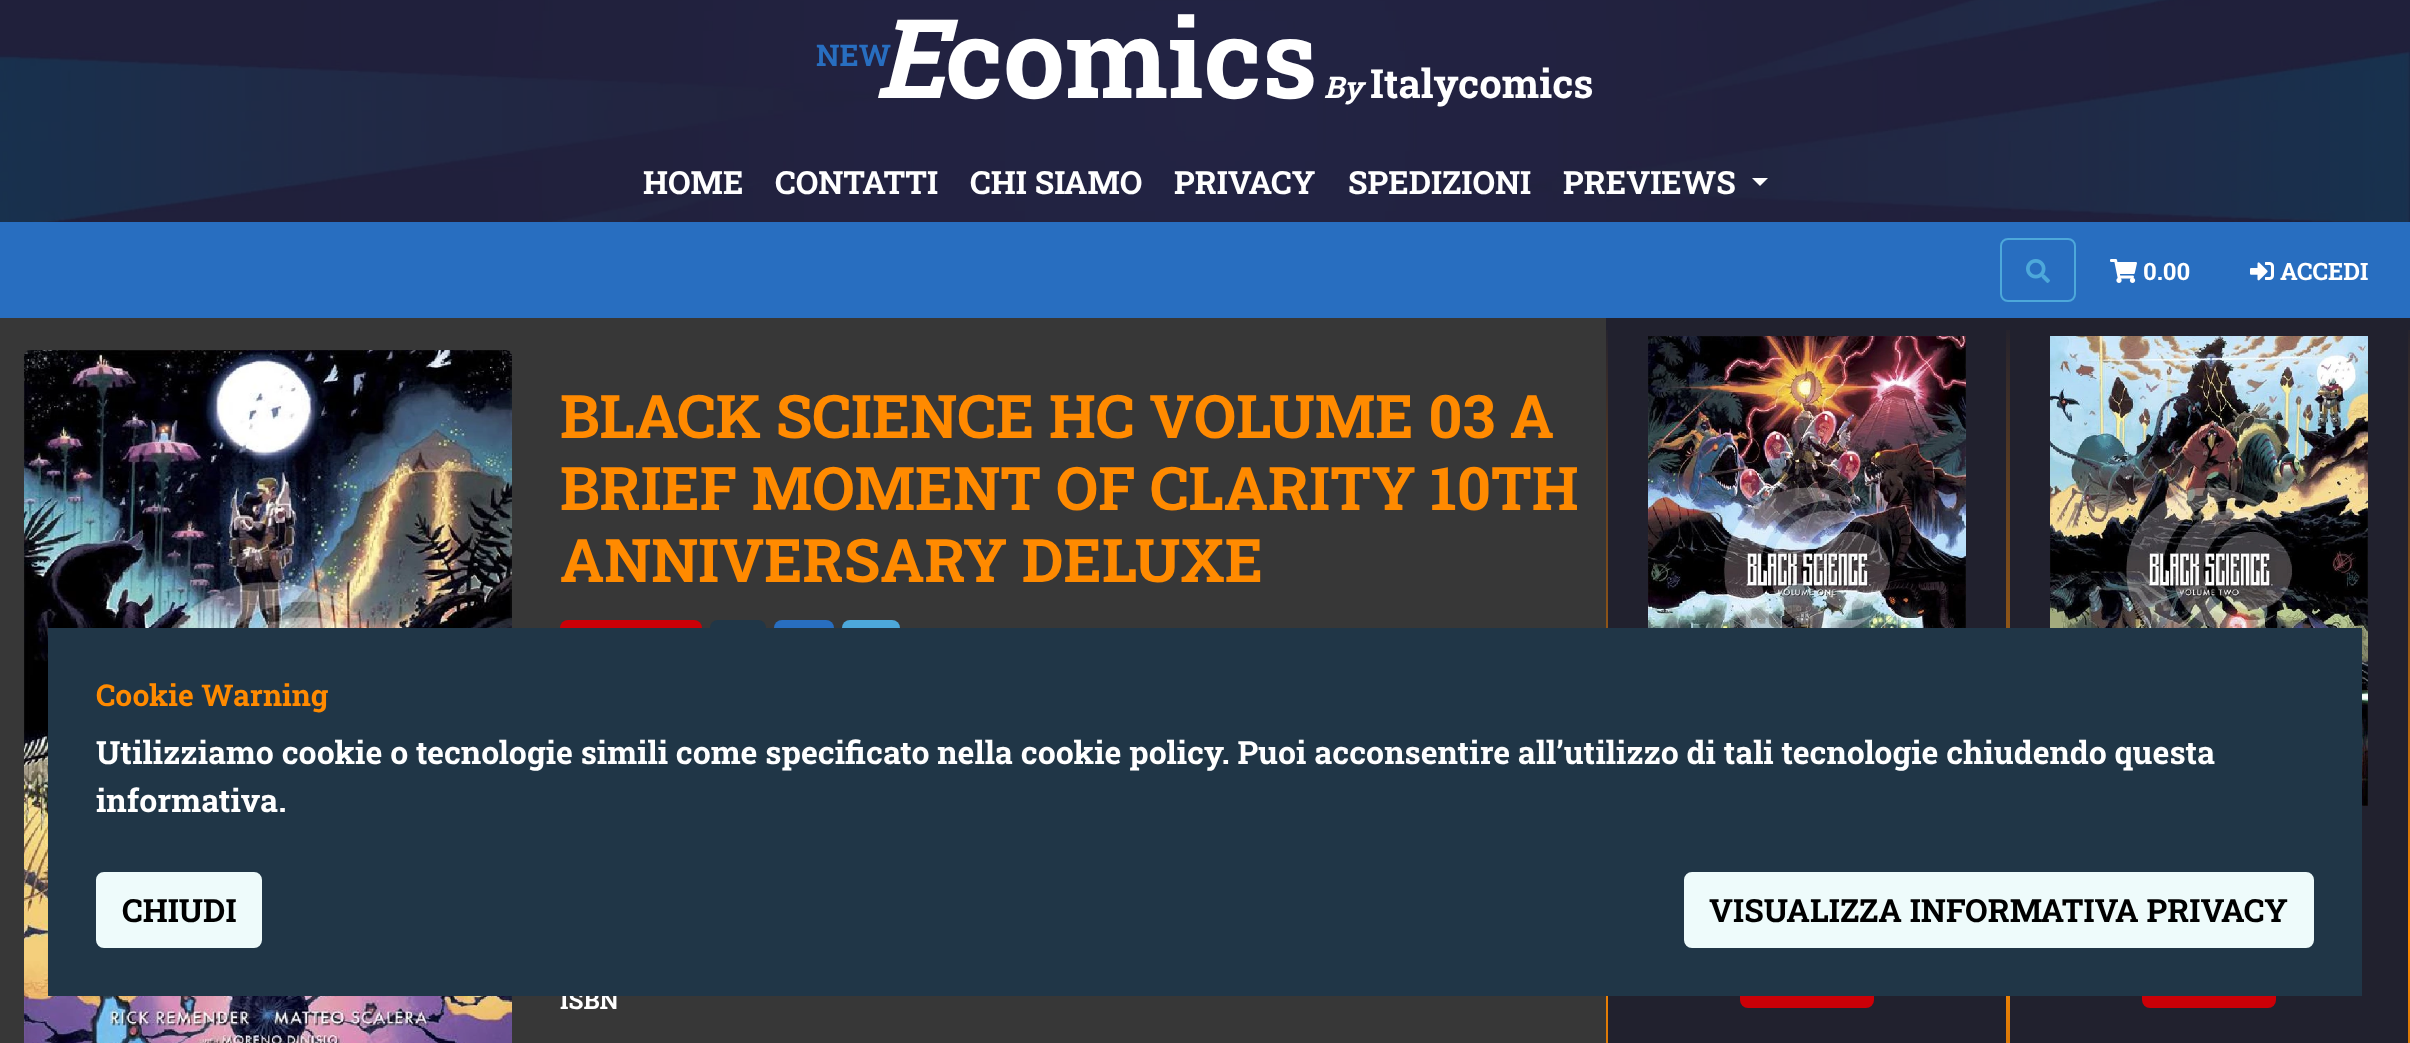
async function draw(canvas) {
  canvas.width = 2410;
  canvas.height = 1043;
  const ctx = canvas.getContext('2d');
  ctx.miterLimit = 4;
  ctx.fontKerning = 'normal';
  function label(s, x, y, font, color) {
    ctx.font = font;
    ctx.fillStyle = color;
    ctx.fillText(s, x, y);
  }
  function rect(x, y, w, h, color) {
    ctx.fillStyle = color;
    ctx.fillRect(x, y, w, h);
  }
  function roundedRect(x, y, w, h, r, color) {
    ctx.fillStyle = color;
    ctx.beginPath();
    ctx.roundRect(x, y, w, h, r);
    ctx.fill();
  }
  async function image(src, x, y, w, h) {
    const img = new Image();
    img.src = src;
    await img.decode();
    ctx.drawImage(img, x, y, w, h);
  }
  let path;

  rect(0, 0, 2410, 1043, '#21212e');
  await image('assets/img1.png', 0, 0, 2410, 222);
  label('NEW', 816, 66, 'bold 30px Roboto Slab', '#286ec0');
  label('E', 875, 98, 'italic bold 110px Roboto Slab', '#fff');
  label('comics', 945, 98, 'bold 110px Roboto Slab', '#fff');
  label('By', 1324, 98, 'italic bold 30px Roboto Slab', '#fff');
  label('Italycomics', 1370, 98, 'bold 40px Roboto Slab', '#fff');
  label('HOME', 643, 194, 'bold 32px Roboto Slab', '#fff');
  label('CONTATTI', 775, 194, 'bold 32px Roboto Slab', '#fff');
  label('CHI SIAMO', 970, 194, 'bold 32px Roboto Slab', '#fff');
  label('PRIVACY', 1174, 194, 'bold 32px Roboto Slab', '#fff');
  label('SPEDIZIONI', 1348, 194, 'bold 32px Roboto Slab', '#fff');
  label('PREVIEWS', 1563, 194, 'bold 32px Roboto Slab', '#fff');
  path = new Path2D('M1752 178H1768L1760 186Z');
  ctx.fill(path);
  rect(0, 222, 2410, 96, '#286ec0');
  ctx.beginPath();
  ctx.roundRect(2001, 239, 74, 62, 7);
  ctx.strokeStyle = '#4da8da';
  ctx.lineWidth = 2;
  ctx.stroke();
  await image('assets/img2.png', 2026, 259, 24, 24);
  await image('assets/img3.png', 2110, 259, 27, 24);
  label('0.00', 2143, 280, 'bold 24px Roboto Slab', '#fff');
  await image('assets/img4.png', 2250, 262, 24, 19);
  label('ACCEDI', 2280, 280, 'bold 24px Roboto Slab', '#fff');
  rect(0, 318, 1606, 725, '#373737');
  await image('assets/img5.png', 24, 350, 488, 693);
  label('BLACK SCIENCE HC VOLUME 03 A', 560, 438, 'bold 60px Roboto Slab', '#ff8a00');
  label('BRIEF MOMENT OF CLARITY 10TH', 560, 510, 'bold 60px Roboto Slab', '#ff8a00');
  label('ANNIVERSARY DELUXE', 560, 582, 'bold 60px Roboto Slab', '#ff8a00');
  roundedRect(560, 620, 142, 40, 8, '#cb0007');
  roundedRect(710, 620, 56, 42, 8, '#203647');
  roundedRect(774, 620, 60, 42, 8, '#286ec0');
  roundedRect(842, 620, 58, 42, 8, '#4da8da');
  label('ISBN', 560, 1009, 'bold 24.5px Roboto Slab', '#fff');
  await image('assets/img6.png', 1606, 330, 402, 713);
  await image('assets/img7.png', 1648, 336, 318, 292);
  roundedRect(1740, 968, 134, 40, 8, '#cb0007');
  await image('assets/img8.png', 2008, 330, 402, 713);
  await image('assets/img9.png', 2050, 336, 318, 470);
  roundedRect(2142, 968, 134, 40, 8, '#cb0007');
  rect(48, 628, 2314, 368, '#203647');
  label('Cookie Warning', 96, 706, 'bold 30px Roboto Slab', '#ff8a00');
  label('Utilizziamo cookie o tecnologie simili come specificato nella cookie policy. Puoi acconsentire all’utilizzo di tali tecnologie chiudendo questa', 96, 764, 'bold 32px Roboto Slab', '#fff');
  label('informativa.', 96, 812, 'bold 32px Roboto Slab', '#fff');
  ctx.fillStyle = '#eefbfb';
  ctx.beginPath();
  ctx.roundRect(97, 873, 164, 74, 7);
  ctx.fill();
  ctx.strokeStyle = '#eefbfb';
  ctx.stroke();
  label('CHIUDI', 122, 922, 'bold 32px Roboto Slab', '#000');
  ctx.fillStyle = '#eefbfb';
  ctx.beginPath();
  ctx.roundRect(1685, 873, 628, 74, 7);
  ctx.fill();
  ctx.stroke();
  label('VISUALIZZA INFORMATIVA PRIVACY', 1709, 922, 'bold 32px Roboto Slab', '#000');
}

draw(document.querySelector('canvas'));
